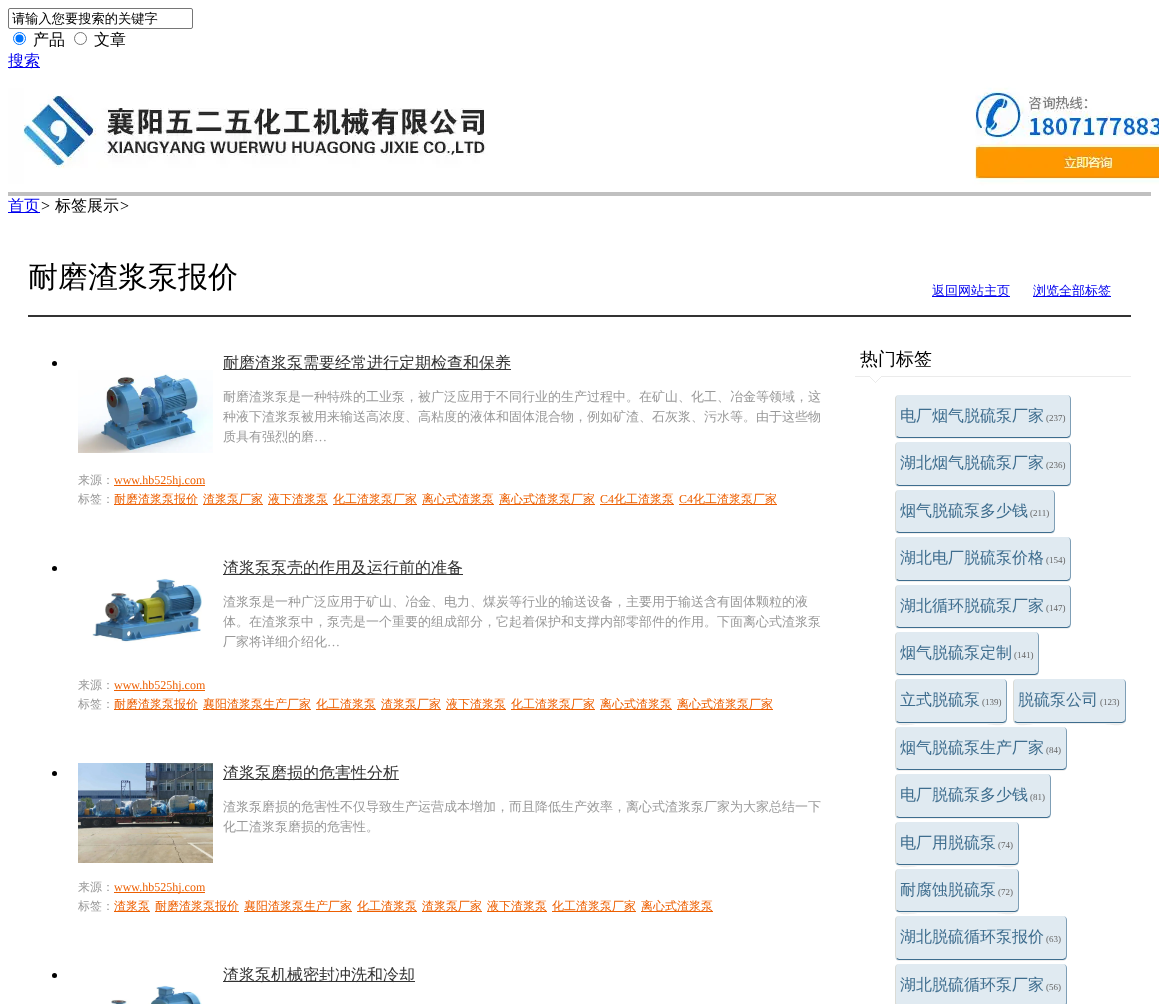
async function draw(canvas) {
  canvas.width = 1159;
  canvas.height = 1004;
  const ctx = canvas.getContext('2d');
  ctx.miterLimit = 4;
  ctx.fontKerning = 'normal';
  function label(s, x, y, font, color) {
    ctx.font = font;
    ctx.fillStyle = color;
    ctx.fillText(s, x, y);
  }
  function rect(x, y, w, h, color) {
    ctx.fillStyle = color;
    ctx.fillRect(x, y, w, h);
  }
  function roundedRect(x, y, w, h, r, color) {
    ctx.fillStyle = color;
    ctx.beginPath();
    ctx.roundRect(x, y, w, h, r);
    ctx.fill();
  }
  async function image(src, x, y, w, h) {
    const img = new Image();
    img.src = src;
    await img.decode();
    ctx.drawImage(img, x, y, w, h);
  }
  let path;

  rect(0, 0, 1159, 1004, '#fff');
  ctx.beginPath();
  ctx.roundRect(8.5, 8.5, 184, 20, 1.5);
  ctx.strokeStyle = '#767676';
  ctx.stroke();
  label('请输入您要搜索的关键字', 12, 23, '500 13.25px WenQuanYi Zen Hei', '#000');
  ctx.beginPath();
  ctx.arc(19.5, 38.5, 6, 0, 2 * Math.PI);
  ctx.strokeStyle = '#0075ff';
  ctx.stroke();
  ctx.fillStyle = '#0075ff';
  ctx.beginPath();
  ctx.arc(19.5, 38.5, 4, 0, 2 * Math.PI);
  ctx.fill();
  label('产品', 33, 45, '500 16px WenQuanYi Zen Hei', '#000');
  ctx.beginPath();
  ctx.arc(80.5, 38.5, 6, 0, 2 * Math.PI);
  ctx.strokeStyle = '#767676';
  ctx.stroke();
  label('文章', 94, 45, '500 16px WenQuanYi Zen Hei', '#000');
  rect(8, 67, 32, 1, '#00e');
  label('搜索', 8, 66, '500 16px WenQuanYi Zen Hei', '#00e');
  rect(8, 192, 1143, 4, '#c0c0c0');
  await image('assets/img1.png', 8, 72, 1151, 120);
  rect(8, 212, 32, 1, '#00e');
  label('首页', 8, 211, '500 16px WenQuanYi Zen Hei', '#00e');
  label('>', 40, 211, 'italic 16px Liberation Serif', '#000');
  label('标签展示', 55, 211, '500 16px WenQuanYi Zen Hei', '#000');
  label('>', 119, 211, 'italic 16px Liberation Serif', '#000');
  rect(28, 315, 1103, 2, '#333');
  label('耐磨渣浆泵报价', 28, 287, '500 30px WenQuanYi Zen Hei', '#000');
  rect(932, 296, 78, 1, '#00e');
  label('返回网站主页', 932, 295, '500 13px WenQuanYi Zen Hei', '#00e');
  rect(1033, 296, 78, 1, '#00e');
  label('浏览全部标签', 1033, 295, '500 13px WenQuanYi Zen Hei', '#00e');
  ctx.fillStyle = '#000';
  ctx.beginPath();
  ctx.arc(54.5, 363.5, 2.5, 0, 2 * Math.PI);
  ctx.fill();
  rect(223, 369, 288, 1, '#333');
  label('耐磨渣浆泵需要经常进行定期检查和保养', 223, 368, '500 16px WenQuanYi Zen Hei', '#333');
  await image('assets/img2.png', 78, 370, 135, 83);
  label('耐磨渣浆泵是一种特殊的工业泵，被广泛应用于不同行业的生产过程中。在矿山、化工、冶金等领域，这', 223, 401, '500 13px WenQuanYi Zen Hei', '#999');
  label('种液下渣浆泵被用来输送高浓度、高粘度的液体和固体混合物，例如矿渣、石灰浆、污水等。由于这些物', 223, 421, '500 13px WenQuanYi Zen Hei', '#999');
  label('质具有强烈的磨', 223, 441, '500 13px WenQuanYi Zen Hei', '#999');
  label('…', 314, 441, '13px Liberation Serif', '#999');
  label('来源：', 78, 484, '500 12px WenQuanYi Zen Hei', '#999');
  rect(114, 485, 91, 1, '#ed5f01');
  label('www.hb525hj.com', 114, 484, '12px Liberation Serif', '#ed5f01');
  label('标签：', 78, 503, '500 12px WenQuanYi Zen Hei', '#999');
  rect(114, 504, 84, 1, '#ed5f01');
  label('耐磨渣浆泵报价', 114, 503, '500 12px WenQuanYi Zen Hei', '#ed5f01');
  rect(203, 504, 60, 1, '#ed5f01');
  label('渣浆泵厂家', 203, 503, '500 12px WenQuanYi Zen Hei', '#ed5f01');
  rect(268, 504, 60, 1, '#ed5f01');
  label('液下渣浆泵', 268, 503, '500 12px WenQuanYi Zen Hei', '#ed5f01');
  rect(333, 504, 84, 1, '#ed5f01');
  label('化工渣浆泵厂家', 333, 503, '500 12px WenQuanYi Zen Hei', '#ed5f01');
  rect(422, 504, 72, 1, '#ed5f01');
  label('离心式渣浆泵', 422, 503, '500 12px WenQuanYi Zen Hei', '#ed5f01');
  rect(499, 504, 96, 1, '#ed5f01');
  label('离心式渣浆泵厂家', 499, 503, '500 12px WenQuanYi Zen Hei', '#ed5f01');
  label('C4', 600, 503, '12px Liberation Serif', '#ed5f01');
  rect(600, 504, 74, 1, '#ed5f01');
  label('化工渣浆泵', 614, 503, '500 12px WenQuanYi Zen Hei', '#ed5f01');
  label('C4', 679, 503, '12px Liberation Serif', '#ed5f01');
  rect(679, 504, 98, 1, '#ed5f01');
  label('化工渣浆泵厂家', 693, 503, '500 12px WenQuanYi Zen Hei', '#ed5f01');
  ctx.fillStyle = '#000';
  ctx.beginPath();
  ctx.arc(54.5, 568.5, 2.5, 0, 2 * Math.PI);
  ctx.fill();
  rect(223, 574, 240, 1, '#333');
  label('渣浆泵泵壳的作用及运行前的准备', 223, 573, '500 16px WenQuanYi Zen Hei', '#333');
  await image('assets/img3.png', 92, 578, 110, 65);
  label('渣浆泵是一种广泛应用于矿山、冶金、电力、煤炭等行业的输送设备，主要用于输送含有固体颗粒的液', 223, 606, '500 13px WenQuanYi Zen Hei', '#999');
  label('体。在渣浆泵中，泵壳是一个重要的组成部分，它起着保护和支撑内部零部件的作用。下面离心式渣浆泵', 223, 626, '500 13px WenQuanYi Zen Hei', '#999');
  label('厂家将详细介绍化', 223, 646, '500 13px WenQuanYi Zen Hei', '#999');
  label('…', 327, 646, '13px Liberation Serif', '#999');
  label('来源：', 78, 689, '500 12px WenQuanYi Zen Hei', '#999');
  rect(114, 690, 91, 1, '#ed5f01');
  label('www.hb525hj.com', 114, 689, '12px Liberation Serif', '#ed5f01');
  label('标签：', 78, 708, '500 12px WenQuanYi Zen Hei', '#999');
  rect(114, 709, 84, 1, '#ed5f01');
  label('耐磨渣浆泵报价', 114, 708, '500 12px WenQuanYi Zen Hei', '#ed5f01');
  rect(203, 709, 108, 1, '#ed5f01');
  label('襄阳渣浆泵生产厂家', 203, 708, '500 12px WenQuanYi Zen Hei', '#ed5f01');
  rect(316, 709, 60, 1, '#ed5f01');
  label('化工渣浆泵', 316, 708, '500 12px WenQuanYi Zen Hei', '#ed5f01');
  rect(381, 709, 60, 1, '#ed5f01');
  label('渣浆泵厂家', 381, 708, '500 12px WenQuanYi Zen Hei', '#ed5f01');
  rect(446, 709, 60, 1, '#ed5f01');
  label('液下渣浆泵', 446, 708, '500 12px WenQuanYi Zen Hei', '#ed5f01');
  rect(511, 709, 84, 1, '#ed5f01');
  label('化工渣浆泵厂家', 511, 708, '500 12px WenQuanYi Zen Hei', '#ed5f01');
  rect(600, 709, 72, 1, '#ed5f01');
  label('离心式渣浆泵', 600, 708, '500 12px WenQuanYi Zen Hei', '#ed5f01');
  rect(677, 709, 96, 1, '#ed5f01');
  label('离心式渣浆泵厂家', 677, 708, '500 12px WenQuanYi Zen Hei', '#ed5f01');
  ctx.fillStyle = '#000';
  ctx.beginPath();
  ctx.arc(54.5, 773.5, 2.5, 0, 2 * Math.PI);
  ctx.fill();
  await image('assets/img4.png', 78, 763, 135, 100);
  rect(223, 779, 176, 1, '#333');
  label('渣浆泵磨损的危害性分析', 223, 778, '500 16px WenQuanYi Zen Hei', '#333');
  label('渣浆泵磨损的危害性不仅导致生产运营成本增加，而且降低生产效率，离心式渣浆泵厂家为大家总结一下', 223, 811, '500 13px WenQuanYi Zen Hei', '#999');
  label('化工渣浆泵磨损的危害性。', 223, 831, '500 13px WenQuanYi Zen Hei', '#999');
  label('来源：', 78, 891, '500 12px WenQuanYi Zen Hei', '#999');
  rect(114, 892, 91, 1, '#ed5f01');
  label('www.hb525hj.com', 114, 891, '12px Liberation Serif', '#ed5f01');
  label('标签：', 78, 910, '500 12px WenQuanYi Zen Hei', '#999');
  rect(114, 911, 36, 1, '#ed5f01');
  label('渣浆泵', 114, 910, '500 12px WenQuanYi Zen Hei', '#ed5f01');
  rect(155, 911, 84, 1, '#ed5f01');
  label('耐磨渣浆泵报价', 155, 910, '500 12px WenQuanYi Zen Hei', '#ed5f01');
  rect(244, 911, 108, 1, '#ed5f01');
  label('襄阳渣浆泵生产厂家', 244, 910, '500 12px WenQuanYi Zen Hei', '#ed5f01');
  rect(357, 911, 60, 1, '#ed5f01');
  label('化工渣浆泵', 357, 910, '500 12px WenQuanYi Zen Hei', '#ed5f01');
  rect(422, 911, 60, 1, '#ed5f01');
  label('渣浆泵厂家', 422, 910, '500 12px WenQuanYi Zen Hei', '#ed5f01');
  rect(487, 911, 60, 1, '#ed5f01');
  label('液下渣浆泵', 487, 910, '500 12px WenQuanYi Zen Hei', '#ed5f01');
  rect(552, 911, 84, 1, '#ed5f01');
  label('化工渣浆泵厂家', 552, 910, '500 12px WenQuanYi Zen Hei', '#ed5f01');
  rect(641, 911, 72, 1, '#ed5f01');
  label('离心式渣浆泵', 641, 910, '500 12px WenQuanYi Zen Hei', '#ed5f01');
  ctx.fillStyle = '#000';
  ctx.beginPath();
  ctx.arc(54.5, 975.5, 2.5, 0, 2 * Math.PI);
  ctx.fill();
  rect(223, 981, 192, 1, '#333');
  label('渣浆泵机械密封冲洗和冷却', 223, 980, '500 16px WenQuanYi Zen Hei', '#333');
  await image('assets/img5.png', 111, 985, 91, 19);
  rect(855, 376, 276, 1, '#ebebeb');
  label('热门标签', 860, 365, '500 18px WenQuanYi Zen Hei', '#000');
  await image('assets/img6.png', 870, 376, 11, 7);
  ctx.fillStyle = '#eee';
  path = new Path2D('M895 434V435C895 437 897 439 899 439H1067C1069 439 1071 437 1071 435V434C1071 436 1069 438 1067 438H899C897 438 895 436 895 434Z');
  ctx.fill(path);
  roundedRect(895, 395, 176, 43, 4, '#e0eaf1');
  ctx.fillStyle = '#7f9fb6';
  path = new Path2D('M1071 399C1071 397 1069 395 1067 395C1069 395 1070 397 1070 399V434L1069 436L1070 437C1070 436 1071 435 1071 434Z');
  ctx.fill(path);
  ctx.fillStyle = '#3e6d8e';
  path = new Path2D('M899 438H1067L1070 437L1069 436L1067 437H899L897 436L896 437Z');
  ctx.fill(path);
  ctx.fillStyle = '#dbdbd5';
  path = new Path2D('M899 395C897 395 895 397 895 399V434C895 435 896 436 896 437L897 436L896 434V399C896 397 897 395 899 395Z');
  ctx.fill(path);
  label('电厂烟气脱硫泵厂家', 900, 421, '500 16px WenQuanYi Zen Hei', '#3e6d8e');
  label('(237)', 1046, 421, '9px Liberation Serif', '#666');
  ctx.fillStyle = '#eee';
  path = new Path2D('M895 482V483C895 485 897 487 899 487H1067C1069 487 1071 485 1071 483V482C1071 484 1069 486 1067 486H899C897 486 895 484 895 482Z');
  ctx.fill(path);
  roundedRect(895, 442, 176, 44, 4, '#e0eaf1');
  ctx.fillStyle = '#7f9fb6';
  path = new Path2D('M1071 446C1071 444 1069 442 1067 442C1069 442 1070 444 1070 446V482L1069 484L1070 485C1070 484 1071 483 1071 482Z');
  ctx.fill(path);
  ctx.fillStyle = '#3e6d8e';
  path = new Path2D('M899 486H1067L1070 485L1069 484L1067 485H899L897 484L896 485Z');
  ctx.fill(path);
  ctx.fillStyle = '#dbdbd5';
  path = new Path2D('M899 442C897 442 895 444 895 446V482C895 483 896 484 896 485L897 484L896 482V446C896 444 897 442 899 442Z');
  ctx.fill(path);
  label('湖北烟气脱硫泵厂家', 900, 468, '500 16px WenQuanYi Zen Hei', '#3e6d8e');
  label('(236)', 1046, 468, '9px Liberation Serif', '#666');
  ctx.fillStyle = '#eee';
  path = new Path2D('M895 529C895 531 896 533 898 534H1052C1054 533 1055 531 1055 529C1055 531 1053 533 1051 533H899C897 533 895 531 895 529Z');
  ctx.fill(path);
  roundedRect(895, 490, 160, 43, 4, '#e0eaf1');
  ctx.fillStyle = '#7f9fb6';
  path = new Path2D('M1055 494C1055 492 1053 490 1051 490C1053 490 1054 492 1054 494V529L1053 531L1054 532C1054 531 1055 530 1055 529Z');
  ctx.fill(path);
  ctx.fillStyle = '#3e6d8e';
  path = new Path2D('M899 533H1051L1054 532L1053 531L1051 532H899L897 531L896 532Z');
  ctx.fill(path);
  ctx.fillStyle = '#dbdbd5';
  path = new Path2D('M899 490C897 490 895 492 895 494V529C895 530 896 531 896 532L897 531L896 529V494C896 492 897 490 899 490Z');
  ctx.fill(path);
  label('烟气脱硫泵多少钱', 900, 516, '500 16px WenQuanYi Zen Hei', '#3e6d8e');
  label('(211)', 1030, 516, '9px Liberation Serif', '#666');
  ctx.fillStyle = '#eee';
  path = new Path2D('M895 577V578C895 580 897 582 899 582H1067C1069 582 1071 580 1071 578V577C1071 579 1069 581 1067 581H899C897 581 895 579 895 577Z');
  ctx.fill(path);
  roundedRect(895, 537, 176, 44, 4, '#e0eaf1');
  ctx.fillStyle = '#7f9fb6';
  path = new Path2D('M1071 541C1071 539 1069 537 1067 537C1069 537 1070 539 1070 541V577L1069 579L1070 580C1070 579 1071 578 1071 577Z');
  ctx.fill(path);
  ctx.fillStyle = '#3e6d8e';
  path = new Path2D('M899 581H1067L1070 580L1069 579L1067 580H899L897 579L896 580Z');
  ctx.fill(path);
  ctx.fillStyle = '#dbdbd5';
  path = new Path2D('M899 537C897 537 895 539 895 541V577C895 578 896 579 896 580L897 579L896 577V541C896 539 897 537 899 537Z');
  ctx.fill(path);
  label('湖北电厂脱硫泵价格', 900, 563, '500 16px WenQuanYi Zen Hei', '#3e6d8e');
  label('(154)', 1046, 563, '9px Liberation Serif', '#666');
  ctx.fillStyle = '#eee';
  path = new Path2D('M895 624V625C895 627 897 629 899 629H1067C1069 629 1071 627 1071 625V624C1071 626 1069 628 1067 628H899C897 628 895 626 895 624Z');
  ctx.fill(path);
  roundedRect(895, 585, 176, 43, 4, '#e0eaf1');
  ctx.fillStyle = '#7f9fb6';
  path = new Path2D('M1071 589C1071 587 1069 585 1067 585C1069 585 1070 587 1070 589V624L1069 626L1070 627C1070 626 1071 625 1071 624Z');
  ctx.fill(path);
  ctx.fillStyle = '#3e6d8e';
  path = new Path2D('M899 628H1067L1070 627L1069 626L1067 627H899L897 626L896 627Z');
  ctx.fill(path);
  ctx.fillStyle = '#dbdbd5';
  path = new Path2D('M899 585C897 585 895 587 895 589V624C895 625 896 626 896 627L897 626L896 624V589C896 587 897 585 899 585Z');
  ctx.fill(path);
  label('湖北循环脱硫泵厂家', 900, 611, '500 16px WenQuanYi Zen Hei', '#3e6d8e');
  label('(147)', 1046, 611, '9px Liberation Serif', '#666');
  ctx.fillStyle = '#eee';
  path = new Path2D('M895 671V672C895 674 897 676 899 676H1035C1037 676 1039 674 1039 672V671C1039 673 1037 675 1035 675H899C897 675 895 673 895 671Z');
  ctx.fill(path);
  roundedRect(895, 632, 144, 43, 4, '#e0eaf1');
  ctx.fillStyle = '#7f9fb6';
  path = new Path2D('M1039 636C1039 634 1037 632 1035 632C1037 632 1038 634 1038 636V671L1037 673L1038 674C1038 673 1039 672 1039 671Z');
  ctx.fill(path);
  ctx.fillStyle = '#3e6d8e';
  path = new Path2D('M899 675H1035L1038 674L1037 673L1035 674H899L897 673L896 674Z');
  ctx.fill(path);
  ctx.fillStyle = '#dbdbd5';
  path = new Path2D('M899 632C897 632 895 634 895 636V671C895 672 896 673 896 674L897 673L896 671V636C896 634 897 632 899 632Z');
  ctx.fill(path);
  label('烟气脱硫泵定制', 900, 658, '500 16px WenQuanYi Zen Hei', '#3e6d8e');
  label('(141)', 1014, 658, '9px Liberation Serif', '#666');
  ctx.fillStyle = '#eee';
  path = new Path2D('M895 719C895 729 913 724 916 724H986C989 724 1007 729 1007 719C1007 721 1005 723 1003 723H899C897 723 895 721 895 719Z');
  ctx.fill(path);
  roundedRect(895, 679, 112, 44, 4, '#e0eaf1');
  ctx.fillStyle = '#7f9fb6';
  path = new Path2D('M1007 683C1007 681 1005 679 1003 679C1005 679 1006 681 1006 683V719L1005 721L1006 722C1006 721 1007 720 1007 719Z');
  ctx.fill(path);
  ctx.fillStyle = '#3e6d8e';
  path = new Path2D('M899 723H1003L1006 722L1005 721L1003 722H899L897 721L896 722Z');
  ctx.fill(path);
  ctx.fillStyle = '#dbdbd5';
  path = new Path2D('M899 679C897 679 895 681 895 683V719C895 720 896 721 896 722L897 721L896 719V683C896 681 897 679 899 679Z');
  ctx.fill(path);
  label('立式脱硫泵', 900, 705, '500 16px WenQuanYi Zen Hei', '#3e6d8e');
  label('(139)', 982, 705, '9px Liberation Serif', '#666');
  ctx.fillStyle = '#eee';
  path = new Path2D('M1013 719C1013 729 1031 724 1034 724H1104C1108 724 1126 729 1126 719C1126 721 1124 723 1122 723H1017C1015 723 1013 721 1013 719Z');
  ctx.fill(path);
  roundedRect(1013, 679, 113, 44, 4, '#e0eaf1');
  ctx.fillStyle = '#7f9fb6';
  path = new Path2D('M1126 683C1126 681 1124 679 1122 679C1124 679 1125 681 1125 683V719L1124 721L1125 722C1126 721 1126 720 1126 719Z');
  ctx.fill(path);
  ctx.fillStyle = '#3e6d8e';
  path = new Path2D('M1017 723H1122L1125 722L1124 721L1122 722H1017L1015 721L1014 722Z');
  ctx.fill(path);
  ctx.fillStyle = '#dbdbd5';
  path = new Path2D('M1017 679C1015 679 1013 681 1013 683V719C1013 720 1014 721 1014 722L1015 721L1014 719V683C1014 681 1015 679 1017 679Z');
  ctx.fill(path);
  label('脱硫泵公司', 1018, 705, '500 16px WenQuanYi Zen Hei', '#3e6d8e');
  label('(123)', 1100, 705, '9px Liberation Serif', '#666');
  ctx.fillStyle = '#eee';
  path = new Path2D('M895 766V767C895 769 897 771 899 771H1063C1065 771 1067 769 1067 767V766C1067 768 1065 770 1063 770H899C897 770 895 768 895 766Z');
  ctx.fill(path);
  roundedRect(895, 727, 172, 43, 4, '#e0eaf1');
  ctx.fillStyle = '#7f9fb6';
  path = new Path2D('M1067 731C1067 729 1065 727 1063 727C1065 727 1066 729 1066 731V766L1065 768L1066 769C1066 768 1067 767 1067 766Z');
  ctx.fill(path);
  ctx.fillStyle = '#3e6d8e';
  path = new Path2D('M899 770H1063L1066 769L1065 768L1063 769H899L897 768L896 769Z');
  ctx.fill(path);
  ctx.fillStyle = '#dbdbd5';
  path = new Path2D('M899 727C897 727 895 729 895 731V766C895 767 896 768 896 769L897 768L896 766V731C896 729 897 727 899 727Z');
  ctx.fill(path);
  label('烟气脱硫泵生产厂家', 900, 753, '500 16px WenQuanYi Zen Hei', '#3e6d8e');
  label('(84)', 1046, 753, '9px Liberation Serif', '#666');
  ctx.fillStyle = '#eee';
  path = new Path2D('M895 814C895 816 896 818 898 819H1048C1050 818 1051 816 1051 814C1051 816 1049 818 1047 818H899L896 817Z');
  ctx.fill(path);
  roundedRect(895, 774, 156, 44, 4, '#e0eaf1');
  ctx.fillStyle = '#7f9fb6';
  path = new Path2D('M1051 778C1051 776 1049 774 1047 774C1049 774 1050 776 1050 778V814L1049 816L1050 817C1050 816 1051 815 1051 814Z');
  ctx.fill(path);
  ctx.fillStyle = '#3e6d8e';
  path = new Path2D('M899 818H1047L1050 817L1049 816L1047 817H899L897 816L896 817Z');
  ctx.fill(path);
  ctx.fillStyle = '#dbdbd5';
  path = new Path2D('M899 774C897 774 895 776 895 778V814C895 815 896 816 896 817L897 816L896 814V778C896 776 897 774 899 774Z');
  ctx.fill(path);
  label('电厂脱硫泵多少钱', 900, 800, '500 16px WenQuanYi Zen Hei', '#3e6d8e');
  label('(81)', 1030, 800, '9px Liberation Serif', '#666');
  ctx.fillStyle = '#eee';
  path = new Path2D('M895 861C895 871 916 866 918 866H996C998 866 1019 871 1019 861C1019 863 1017 865 1015 865H899C897 865 895 863 895 861Z');
  ctx.fill(path);
  roundedRect(895, 822, 124, 43, 4, '#e0eaf1');
  ctx.fillStyle = '#7f9fb6';
  path = new Path2D('M1019 826C1019 824 1017 822 1015 822C1017 822 1018 824 1018 826V861L1017 863L1018 864C1018 863 1019 862 1019 861Z');
  ctx.fill(path);
  ctx.fillStyle = '#3e6d8e';
  path = new Path2D('M899 865H1015L1018 864L1017 863L1015 864H899L897 863L896 864Z');
  ctx.fill(path);
  ctx.fillStyle = '#dbdbd5';
  path = new Path2D('M899 822C897 822 895 824 895 826V861C895 862 896 863 896 864L897 863L896 861V826C896 824 897 822 899 822Z');
  ctx.fill(path);
  label('电厂用脱硫泵', 900, 848, '500 16px WenQuanYi Zen Hei', '#3e6d8e');
  label('(74)', 998, 848, '9px Liberation Serif', '#666');
  ctx.fillStyle = '#eee';
  path = new Path2D('M895 908C895 918 916 913 918 913H996C998 913 1019 918 1019 908C1019 910 1017 912 1015 912H899C897 912 895 910 895 908Z');
  ctx.fill(path);
  roundedRect(895, 869, 124, 43, 4, '#e0eaf1');
  ctx.fillStyle = '#7f9fb6';
  path = new Path2D('M1019 873C1019 871 1017 869 1015 869C1017 869 1018 871 1018 873V908L1017 910L1018 911C1018 910 1019 909 1019 908Z');
  ctx.fill(path);
  ctx.fillStyle = '#3e6d8e';
  path = new Path2D('M899 912H1015L1018 911L1017 910L1015 911H899L897 910L896 911Z');
  ctx.fill(path);
  ctx.fillStyle = '#dbdbd5';
  path = new Path2D('M899 869C897 869 895 871 895 873V908C895 909 896 910 896 911L897 910L896 908V873C896 871 897 869 899 869Z');
  ctx.fill(path);
  label('耐腐蚀脱硫泵', 900, 895, '500 16px WenQuanYi Zen Hei', '#3e6d8e');
  label('(72)', 998, 895, '9px Liberation Serif', '#666');
  ctx.fillStyle = '#eee';
  path = new Path2D('M895 956V957C895 959 897 961 899 961H1063C1065 961 1067 959 1067 957V956C1067 958 1065 960 1063 960H899C897 960 895 958 895 956Z');
  ctx.fill(path);
  roundedRect(895, 916, 172, 44, 4, '#e0eaf1');
  ctx.fillStyle = '#7f9fb6';
  path = new Path2D('M1067 920C1067 918 1065 916 1063 916C1065 916 1066 918 1066 920V956L1065 958L1066 959C1066 958 1067 957 1067 956Z');
  ctx.fill(path);
  ctx.fillStyle = '#3e6d8e';
  path = new Path2D('M899 960H1063L1066 959L1065 958L1063 959H899L897 958L896 959Z');
  ctx.fill(path);
  ctx.fillStyle = '#dbdbd5';
  path = new Path2D('M899 916C897 916 895 918 895 920V956C895 957 896 958 896 959L897 958L896 956V920C896 918 897 916 899 916Z');
  ctx.fill(path);
  label('湖北脱硫循环泵报价', 900, 942, '500 16px WenQuanYi Zen Hei', '#3e6d8e');
  label('(63)', 1046, 942, '9px Liberation Serif', '#666');
  roundedRect(895, 964, 172, 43, 4, '#e0eaf1');
  ctx.fillStyle = '#7f9fb6';
  path = new Path2D('M1067 968C1067 966 1065 964 1063 964C1065 964 1066 966 1066 968V1003L1065 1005L1066 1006C1066 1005 1067 1004 1067 1003Z');
  ctx.fill(path);
  ctx.fillStyle = '#dbdbd5';
  path = new Path2D('M899 964C897 964 895 966 895 968V1003C895 1004 896 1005 896 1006L897 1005L896 1003V968C896 966 897 964 899 964Z');
  ctx.fill(path);
  label('湖北脱硫循环泵厂家', 900, 990, '500 16px WenQuanYi Zen Hei', '#3e6d8e');
  label('(56)', 1046, 990, '9px Liberation Serif', '#666');
}

draw(document.querySelector('canvas'));
